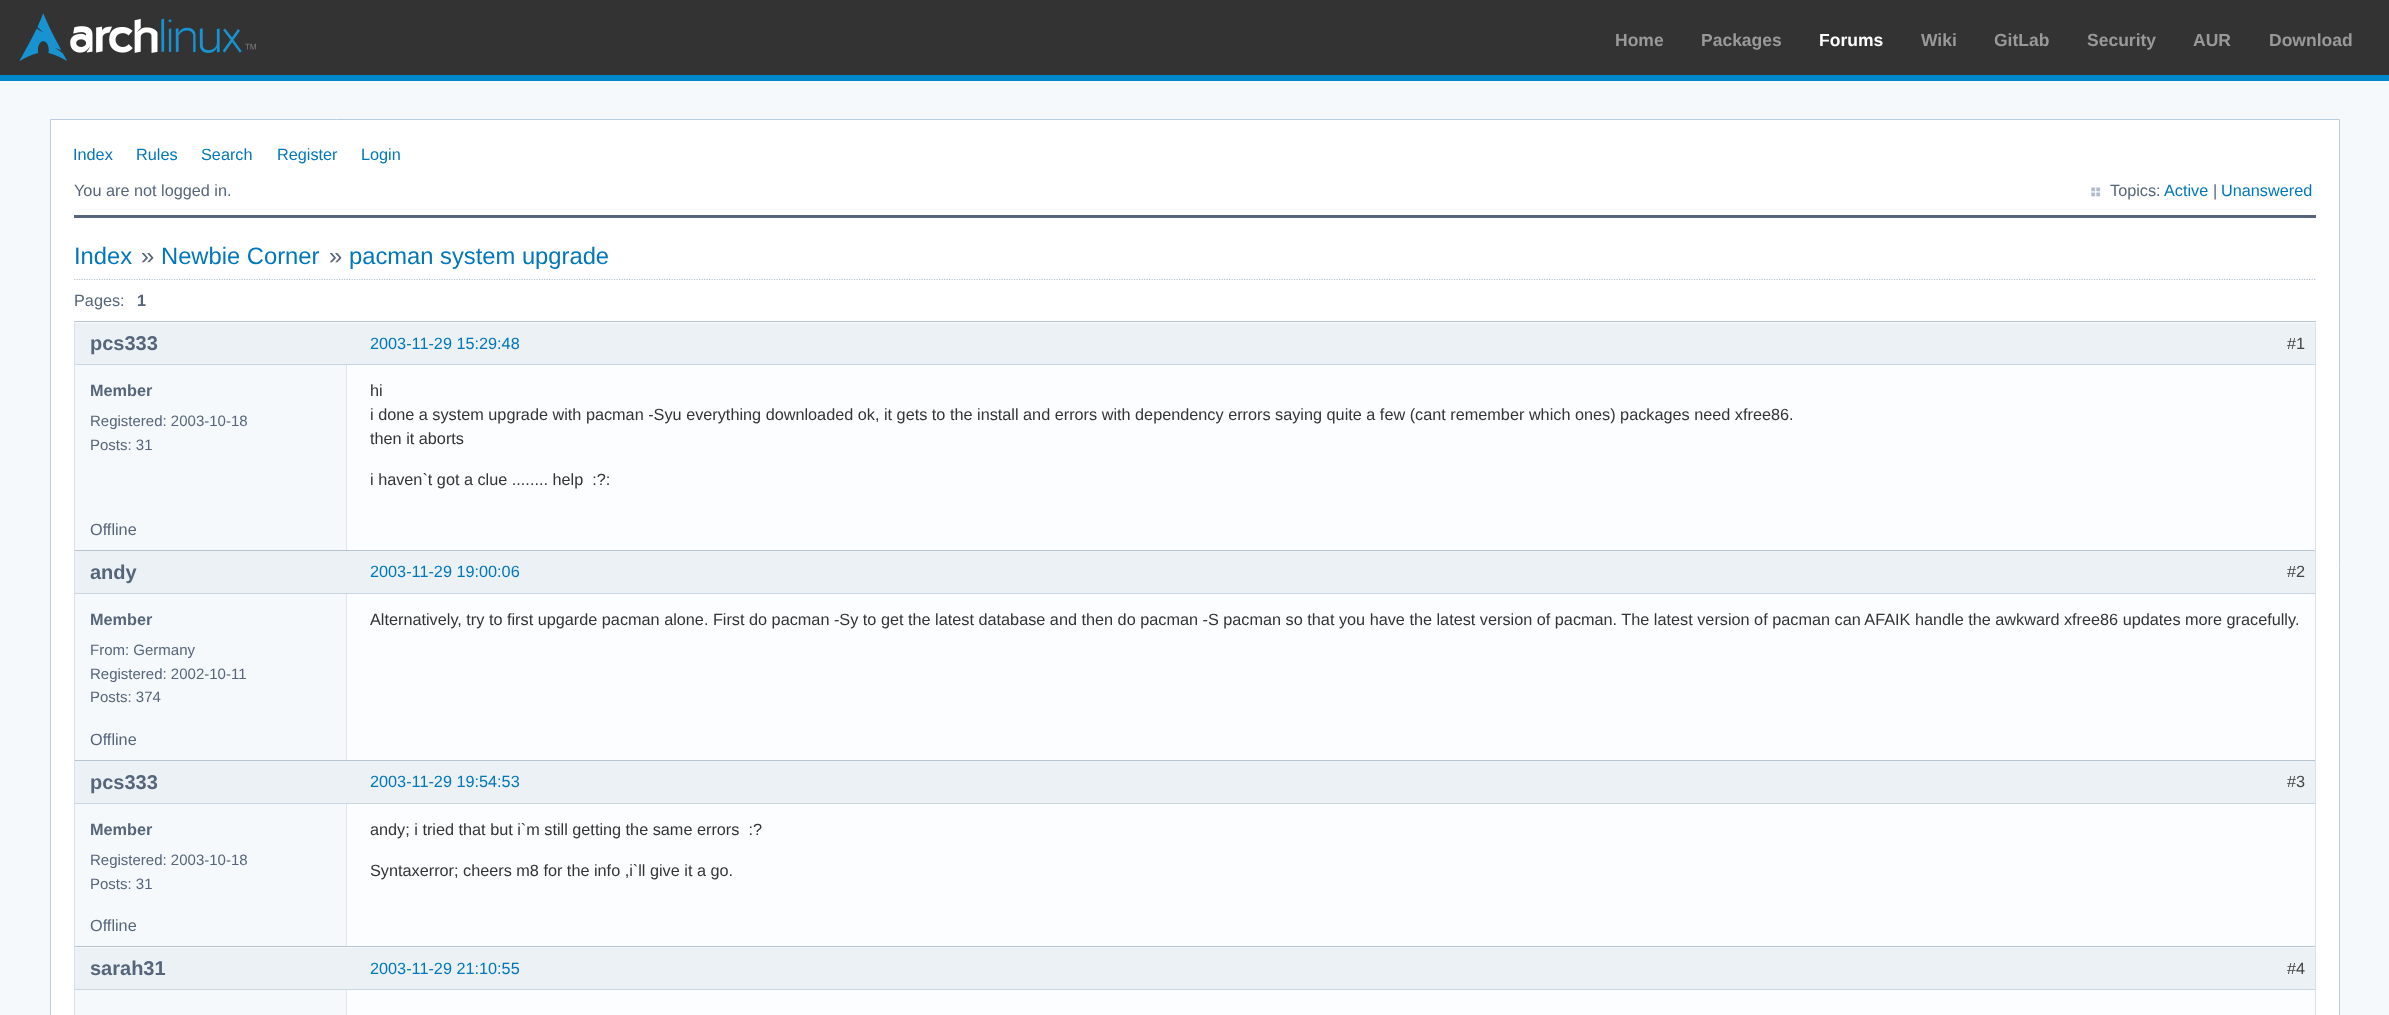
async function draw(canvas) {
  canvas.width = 2389;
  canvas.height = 1015;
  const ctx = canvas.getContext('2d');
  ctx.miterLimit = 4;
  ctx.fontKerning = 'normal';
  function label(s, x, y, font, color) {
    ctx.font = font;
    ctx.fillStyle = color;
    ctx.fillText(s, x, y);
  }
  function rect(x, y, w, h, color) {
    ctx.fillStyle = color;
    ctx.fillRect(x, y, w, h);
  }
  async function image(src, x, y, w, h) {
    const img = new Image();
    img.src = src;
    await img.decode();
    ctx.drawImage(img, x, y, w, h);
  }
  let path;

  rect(0, 0, 2389, 1015, '#f6f9fc');
  rect(0, 0, 2389, 75, '#333');
  rect(0, 75, 2389, 6, '#08c');
  await image('assets/img1.png', 19, 13, 237, 48);
  label('Home', 1615, 46, 'bold 17.5px Liberation Sans', '#999');
  label('Packages', 1701, 46, 'bold 17.5px Liberation Sans', '#999');
  label('Forums', 1819, 46, 'bold 17.5px Liberation Sans', '#fff');
  label('Wiki', 1921, 46, 'bold 17.5px Liberation Sans', '#999');
  label('GitLab', 1994, 46, 'bold 17.5px Liberation Sans', '#999');
  label('Security', 2087, 46, 'bold 17.5px Liberation Sans', '#999');
  label('AUR', 2193, 46, 'bold 17.5px Liberation Sans', '#999');
  label('Download', 2269, 46, 'bold 17.5px Liberation Sans', '#999');
  ctx.fillStyle = '#fff';
  ctx.beginPath();
  ctx.rect(50.5, 119.5, 2289, 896);
  ctx.fill();
  ctx.strokeStyle = '#bcd';
  ctx.stroke();
  label('Index', 73, 160, '16.25px Liberation Sans', '#07b');
  label('Rules', 136, 160, '16.25px Liberation Sans', '#07b');
  label('Search', 201, 160, '16.25px Liberation Sans', '#07b');
  label('Register', 277, 160, '16.25px Liberation Sans', '#07b');
  label('Login', 361, 160, '16.25px Liberation Sans', '#07b');
  label('You are not logged in.', 74, 196, '16.25px Liberation Sans', '#566579');
  await image('assets/img2.png', 2091, 187, 10, 10);
  label('Topics:', 2110, 196, '16.25px Liberation Sans', '#566579');
  label('Active', 2164, 196, '16.25px Liberation Sans', '#07b');
  label('|', 2213, 196, '16.25px Liberation Sans', '#566579');
  label('Unanswered', 2221, 196, '16.25px Liberation Sans', '#07b');
  rect(74, 215, 2242, 3, '#566579');
  label('Index', 74, 264, '23.75px Liberation Sans', '#07b');
  label('»', 141, 264, '23.75px Liberation Sans', '#566579');
  label('Newbie Corner', 161, 264, '23.75px Liberation Sans', '#07b');
  label('»', 329, 264, '23.75px Liberation Sans', '#566579');
  label('pacman system upgrade', 349, 264, '23.75px Liberation Sans', '#07b');
  path = new Path2D('M74 279.5H2316');
  ctx.strokeStyle = '#b9c5ce';
  ctx.lineWidth = 1.2;
  ctx.setLineDash([1.25, 1.25]);
  ctx.stroke(path);
  label('Pages:', 74, 306, '16.25px Liberation Sans', '#566579');
  label('1', 137, 306, 'bold 16.25px Liberation Sans', '#566579');
  rect(75, 322, 2240, 228, '#f6f9fc');
  rect(74, 321, 2242, 1, '#b9c5ce');
  rect(2315, 321, 1, 230, '#d9e1e7');
  rect(74, 321, 1, 230, '#d9e1e7');
  rect(347, 365, 1968, 185, '#fcfdfe');
  rect(346, 365, 1, 185, '#dfe6ee');
  rect(75, 323, 2240, 41, '#ebf1f5');
  label('pcs333', 90, 350, 'bold 20px Liberation Sans', '#566579');
  label('Member', 90, 396, 'bold 16.25px Liberation Sans', '#566579');
  label('Registered: 2003-10-18', 90, 426, '15px Liberation Sans', '#566579');
  label('Posts: 31', 90, 450, '15px Liberation Sans', '#566579');
  label('hi', 370, 396, '16.25px Liberation Sans', '#333');
  label('i done a system upgrade with pacman -Syu everything downloaded ok, it gets to the install and errors with dependency errors saying quite a few (cant remember which ones) packages need xfree86.', 370, 420, '16.25px Liberation Sans', '#333');
  label('then it aborts', 370, 444, '16.25px Liberation Sans', '#333');
  label('i haven`t got a clue ........ help  :?:', 370, 485, '16.25px Liberation Sans', '#333');
  label('Offline', 90, 535, '16.25px Liberation Sans', '#566579');
  rect(75, 364, 2240, 1, '#cad7e1');
  label('2003-11-29 15:29:48', 370, 349, '16.25px Liberation Sans', '#07b');
  label('#1', 2287, 349, '16.25px Liberation Sans', '#444');
  rect(75, 594, 271, 166, '#f6f9fc');
  rect(74, 550, 2242, 1, '#b9c5ce');
  rect(2315, 550, 1, 211, '#d9e1e7');
  rect(74, 550, 1, 211, '#d9e1e7');
  rect(347, 594, 1968, 166, '#fcfdfe');
  rect(346, 594, 1, 166, '#dfe6ee');
  rect(75, 551, 2240, 42, '#ebf1f5');
  label('andy', 90, 579, 'bold 20px Liberation Sans', '#566579');
  label('Member', 90, 625, 'bold 16.25px Liberation Sans', '#566579');
  label('From: Germany', 90, 655, '15px Liberation Sans', '#566579');
  label('Registered: 2002-10-11', 90, 679, '15px Liberation Sans', '#566579');
  label('Posts: 374', 90, 702, '15px Liberation Sans', '#566579');
  label('Alternatively, try to first upgarde pacman alone. First do pacman -Sy to get the latest database and then do pacman -S pacman so that you have the latest version of pacman. The latest version of pacman can AFAIK handle the awkward xfree86 updates more gracefully.', 370, 625, '16.25px Liberation Sans', '#333');
  label('Offline', 90, 745, '16.25px Liberation Sans', '#566579');
  rect(75, 593, 2240, 1, '#cad7e1');
  label('2003-11-29 19:00:06', 370, 577, '16.25px Liberation Sans', '#07b');
  label('#2', 2287, 577, '16.25px Liberation Sans', '#444');
  rect(75, 804, 271, 142, '#f6f9fc');
  rect(74, 760, 2242, 1, '#b9c5ce');
  rect(2315, 760, 1, 188, '#d9e1e7');
  rect(74, 760, 1, 188, '#d9e1e7');
  rect(347, 804, 1968, 142, '#fcfdfe');
  rect(346, 804, 1, 142, '#dfe6ee');
  rect(75, 761, 2240, 42, '#ebf1f5');
  label('pcs333', 90, 789, 'bold 20px Liberation Sans', '#566579');
  label('Member', 90, 835, 'bold 16.25px Liberation Sans', '#566579');
  label('Registered: 2003-10-18', 90, 865, '15px Liberation Sans', '#566579');
  label('Posts: 31', 90, 889, '15px Liberation Sans', '#566579');
  label('andy; i tried that but i`m still getting the same errors  :?', 370, 835, '16.25px Liberation Sans', '#333');
  label('Syntaxerror; cheers m8 for the info ,i`ll give it a go.', 370, 876, '16.25px Liberation Sans', '#333');
  label('Offline', 90, 931, '16.25px Liberation Sans', '#566579');
  rect(75, 803, 2240, 1, '#cad7e1');
  label('2003-11-29 19:54:53', 370, 787, '16.25px Liberation Sans', '#07b');
  label('#3', 2287, 787, '16.25px Liberation Sans', '#444');
  rect(75, 947, 2240, 68, '#f6f9fc');
  rect(74, 946, 2242, 1, '#b9c5ce');
  rect(2315, 946, 1, 69, '#d9e1e7');
  rect(74, 946, 1, 69, '#d9e1e7');
  rect(347, 990, 1968, 25, '#fcfdfe');
  rect(346, 990, 1, 25, '#dfe6ee');
  rect(75, 948, 2240, 41, '#ebf1f5');
  label('sarah31', 90, 975, 'bold 20px Liberation Sans', '#566579');
  rect(75, 989, 2240, 1, '#cad7e1');
  label('2003-11-29 21:10:55', 370, 974, '16.25px Liberation Sans', '#07b');
  label('#4', 2287, 974, '16.25px Liberation Sans', '#444');
}

draw(document.querySelector('canvas'));
